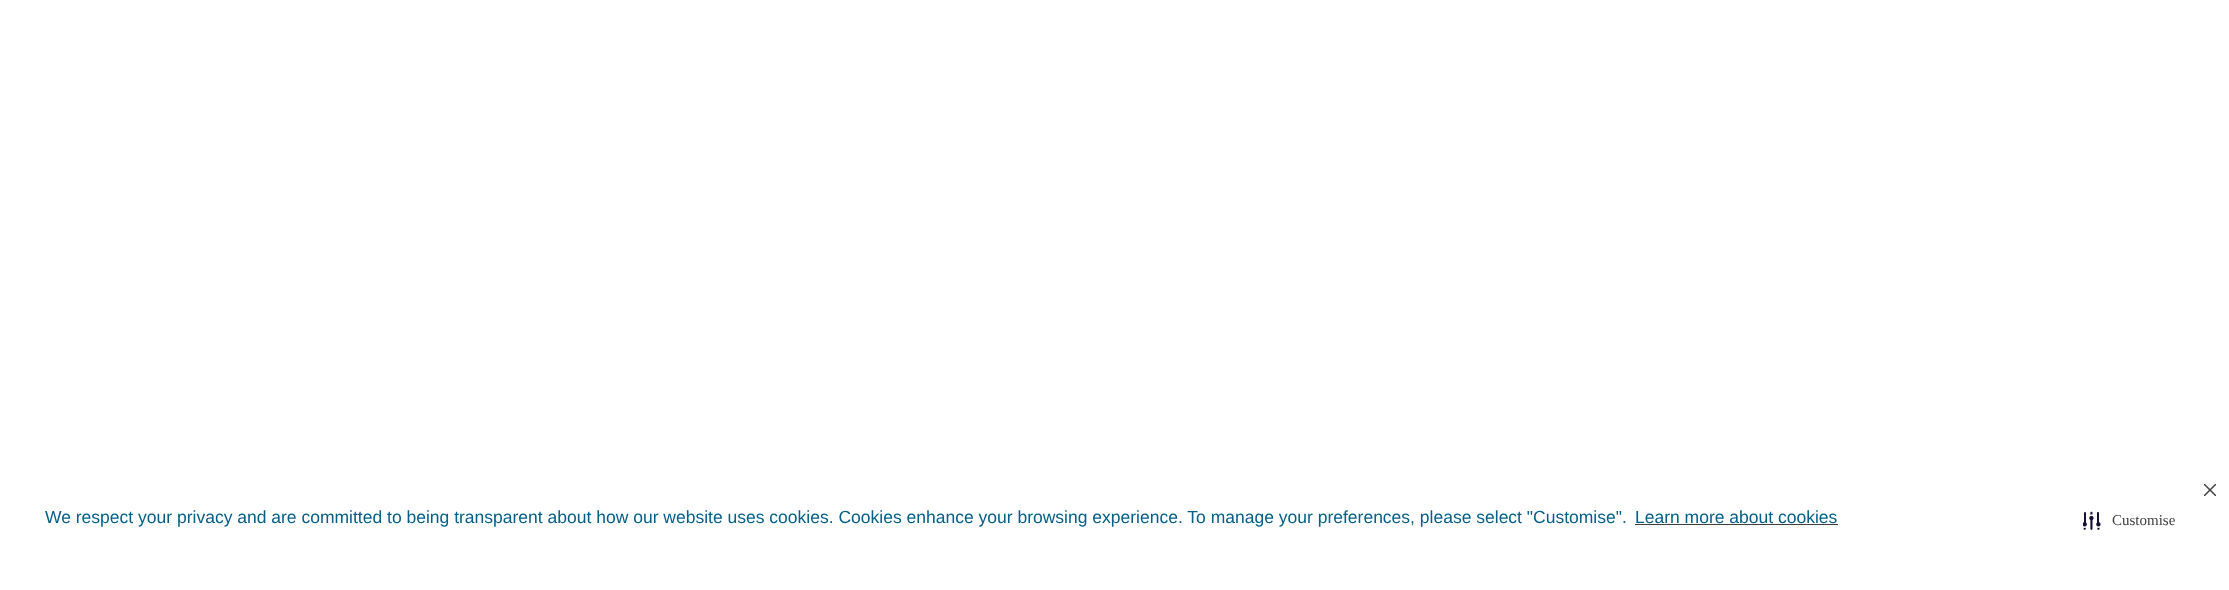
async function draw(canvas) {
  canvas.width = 2229;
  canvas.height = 590;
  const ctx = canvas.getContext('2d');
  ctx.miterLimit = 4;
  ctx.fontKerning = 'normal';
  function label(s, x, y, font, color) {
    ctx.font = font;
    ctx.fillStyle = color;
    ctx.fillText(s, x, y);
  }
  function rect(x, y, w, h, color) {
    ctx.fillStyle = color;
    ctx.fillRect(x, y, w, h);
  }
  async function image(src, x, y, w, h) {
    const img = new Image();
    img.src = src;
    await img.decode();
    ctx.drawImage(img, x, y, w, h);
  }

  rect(0, 0, 2229, 590, '#fff');
  label('We respect your privacy and are committed to being transparent about how our website uses cookies. Cookies enhance your browsing experience. To manage your preferences, please select "Customise".', 45, 523, '17.5px Liberation Sans', '#035e88');
  label('Learn more about cookies', 1635, 523, '17.5px Liberation Sans', '#035e88');
  rect(1635, 524, 203, 1, '#404040');
  await image('assets/img1.png', 2204, 484, 12, 12);
  await image('assets/img2.png', 2083, 511, 18, 19);
  label('Customise', 2112, 525, '15px Liberation Serif', '#404040');
}

draw(document.querySelector('canvas'));
